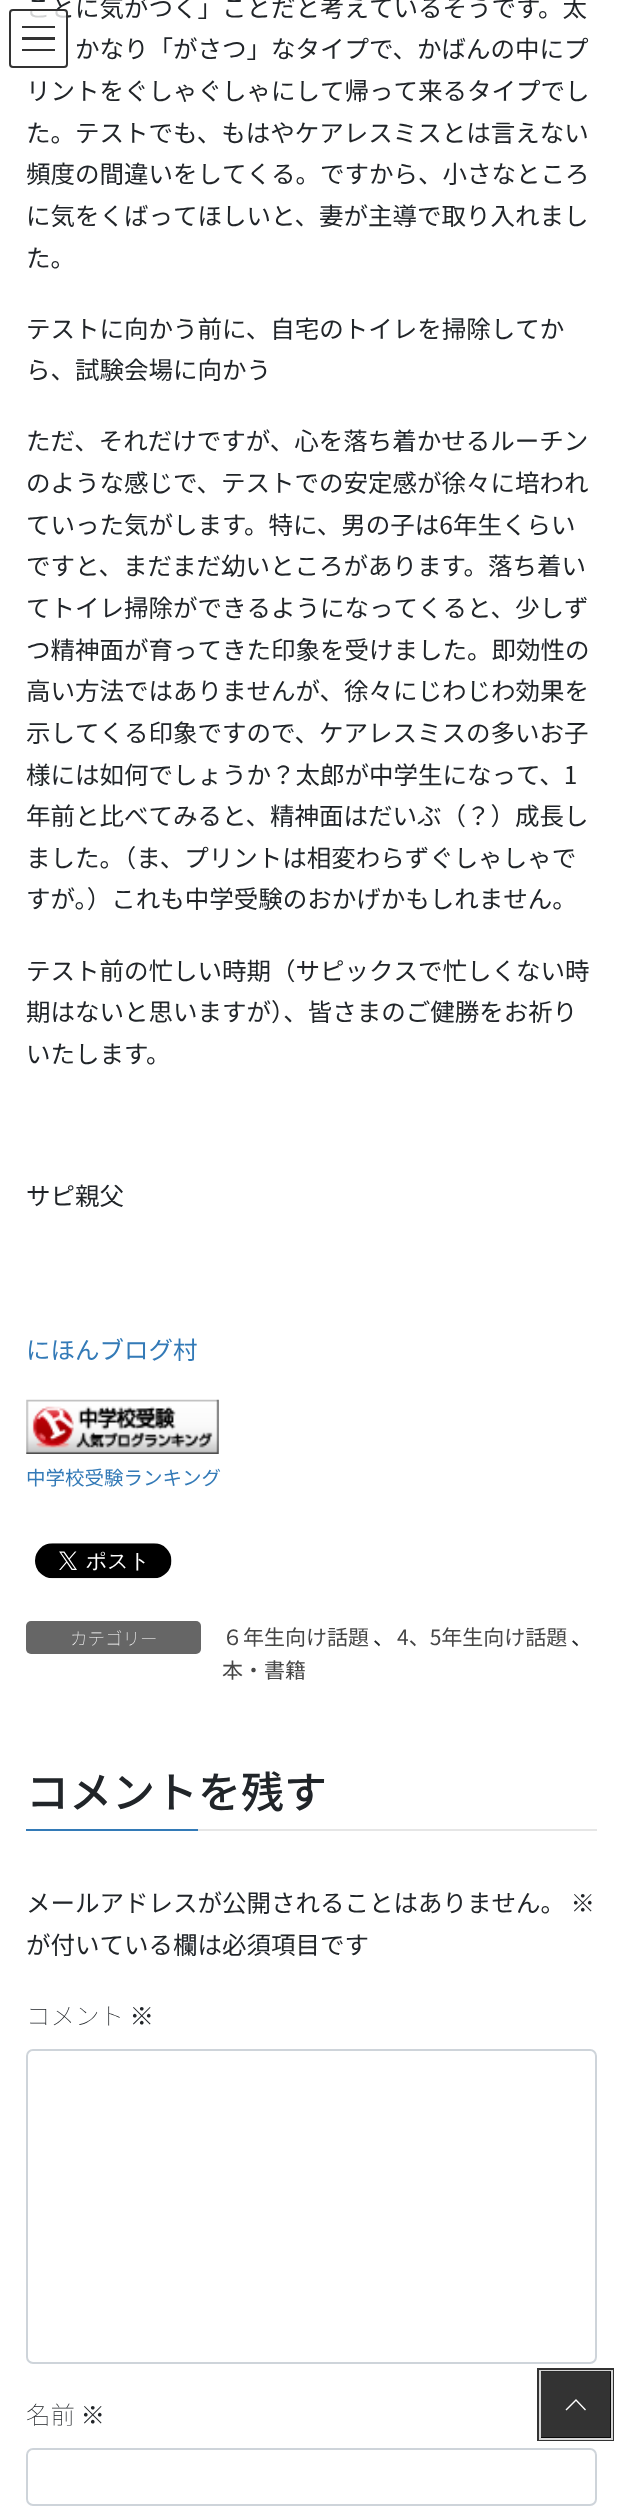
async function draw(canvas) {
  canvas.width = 623;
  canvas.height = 2513;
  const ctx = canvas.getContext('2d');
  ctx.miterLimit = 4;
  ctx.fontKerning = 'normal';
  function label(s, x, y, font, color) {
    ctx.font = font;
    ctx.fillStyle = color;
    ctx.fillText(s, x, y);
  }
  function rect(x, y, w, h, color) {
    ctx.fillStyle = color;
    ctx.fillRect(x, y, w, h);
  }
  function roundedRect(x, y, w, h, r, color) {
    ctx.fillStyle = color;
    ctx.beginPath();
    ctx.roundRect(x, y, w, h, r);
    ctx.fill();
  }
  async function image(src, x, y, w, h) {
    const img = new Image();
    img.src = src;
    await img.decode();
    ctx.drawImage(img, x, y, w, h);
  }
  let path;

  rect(0, 0, 623, 2513, '#fff');
  label('ことに気がつく」ことだと考えているそうです。太', 26, 17, '24.5px Noto Sans JP', '#212529');
  label('かなり「がさつ」なタイプで、かばんの中にプ', 75, 58, '24.5px Noto Sans JP', '#212529');
  label('リントをぐしゃぐしゃにして帰って来るタイプでし', 26, 100, '24.5px Noto Sans JP', '#212529');
  label('た。テストでも、もはやケアレスミスとは言えない', 26, 142, '24.5px Noto Sans JP', '#212529');
  label('頻度の間違いをしてくる。ですから、小さなところ', 26, 183, '24.5px Noto Sans JP', '#212529');
  label('に気をくばってほしいと、妻が主導で取り入れまし', 26, 225, '24.5px Noto Sans JP', '#212529');
  label('た。', 26, 267, '24.5px Noto Sans JP', '#212529');
  label('テストに向かう前に、自宅のトイレを掃除してか', 26, 338, '24.5px Noto Sans JP', '#212529');
  label('ら、試験会場に向かう', 26, 379, '24.5px Noto Sans JP', '#212529');
  label('ただ、それだけですが、心を落ち着かせるルーチン', 26, 450, '24.5px Noto Sans JP', '#212529');
  label('のような感じで、テストでの安定感が徐々に培われ', 26, 492, '24.5px Noto Sans JP', '#212529');
  label('ていった気がします。特に、男の子は6年生くらい', 26, 534, '24.5px Noto Sans JP', '#212529');
  label('ですと、まだまだ幼いところがあります。落ち着い', 26, 575, '24.5px Noto Sans JP', '#212529');
  label('てトイレ掃除ができるようになってくると、少しず', 26, 617, '24.5px Noto Sans JP', '#212529');
  label('つ精神面が育ってきた印象を受けました。即効性の', 26, 659, '24.5px Noto Sans JP', '#212529');
  label('高い方法ではありませんが、徐々にじわじわ効果を', 26, 700, '24.5px Noto Sans JP', '#212529');
  label('示してくる印象ですので、ケアレスミスの多いお子', 26, 742, '24.5px Noto Sans JP', '#212529');
  label('様には如何でしょうか？太郎が中学生になって、1', 26, 784, '24.5px Noto Sans JP', '#212529');
  label('年前と比べてみると、精神面はだいぶ（？）成長し', 26, 825, '24.5px Noto Sans JP', '#212529');
  label('ました。（ま、プリントは相変わらずぐしゃしゃで', 26, 867, '24.5px Noto Sans JP', '#212529');
  label('すが。）これも中学受験のおかげかもしれません。', 26, 908, '24.5px Noto Sans JP', '#212529');
  label('テスト前の忙しい時期（サピックスで忙しくない時', 26, 980, '24.5px Noto Sans JP', '#212529');
  label('期はないと思いますが）、皆さまのご健勝をお祈り', 26, 1021, '24.5px Noto Sans JP', '#212529');
  label('いたします。', 26, 1063, '24.5px Noto Sans JP', '#212529');
  label('サピ親父', 26, 1205, '24.5px Noto Sans JP', '#212529');
  label('にほんブログ村', 26, 1359, '24.5px Noto Sans JP', '#337ab7');
  await image('assets/img1.png', 26, 1399, 193, 55);
  label('中学校受験ランキング', 26, 1485, '19.5px Noto Sans JP', '#337ab7');
  await image('assets/img2.png', 35, 1543, 137, 36);
  roundedRect(26, 1621, 175, 33, 5, '#666');
  label('カテゴリー', 70, 1645, '100 17.5px Noto Sans JP', '#fff');
  label('６年生向け話題', 222, 1645, '21px Noto Sans JP', '#464646');
  label('、', 373, 1645, '21px Noto Sans JP', '#212529');
  label('4、5年生向け話題', 397, 1645, '21px Noto Sans JP', '#464646');
  label('、', 571, 1645, '21px Noto Sans JP', '#212529');
  label('本・書籍', 222, 1678, '21px Noto Sans JP', '#464646');
  rect(198, 1829, 399, 2, '#e6e6e6');
  label('コメントを残す', 26, 1808, '500 43px Noto Sans JP', '#212529');
  rect(26, 1829, 172, 2, '#337ab7');
  label('メールアドレスが公開されることはありません。 ※', 26, 1912, '24.5px Noto Sans JP', '#212529');
  label('が付いている欄は必須項目です', 26, 1954, '24.5px Noto Sans JP', '#212529');
  label('コメント ※', 26, 2025, '100 24.5px Noto Sans JP', '#212529');
  ctx.beginPath();
  ctx.roundRect(27, 2050, 569, 313, 6);
  ctx.strokeStyle = '#ced4da';
  ctx.lineWidth = 2;
  ctx.stroke();
  label('名前 ※', 26, 2424, '100 24.5px Noto Sans JP', '#212529');
  ctx.beginPath();
  ctx.roundRect(27, 2449, 569, 56, 6);
  ctx.stroke();
  roundedRect(9, 9, 59, 59, 4, '#ffffffcc');
  rect(22, 26, 33, 2, '#333');
  rect(22, 37, 33, 3, '#000000cc');
  rect(22, 49, 33, 2, '#000000cc');
  ctx.beginPath();
  ctx.roundRect(10, 10, 57, 57, 3);
  ctx.strokeStyle = '#333';
  ctx.stroke();
  ctx.lineWidth = 4;
  ctx.strokeRect(539, 2370, 73, 69);
  ctx.strokeStyle = '#d6d6d6';
  ctx.lineWidth = 2;
  ctx.strokeRect(540, 2371, 72, 68);
  rect(541, 2371, 70, 67, '#000000cc');
  ctx.fillStyle = '#fff';
  path = new Path2D('M586 2409.5L585 2410.5L576 2401L566.5 2410.5L565.5 2409.5L576 2399Z');
  ctx.fill(path);
}

draw(document.querySelector('canvas'));
